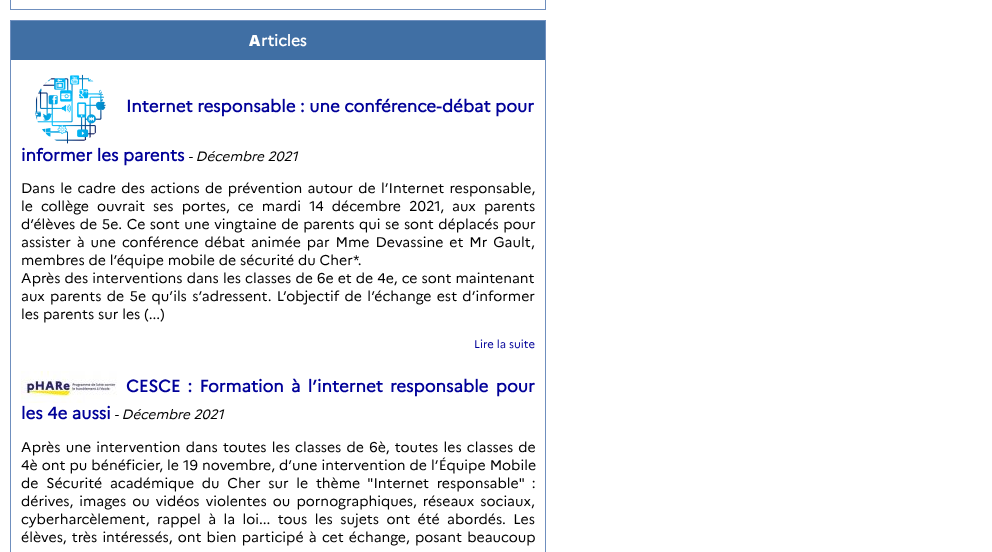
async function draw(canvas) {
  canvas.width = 992;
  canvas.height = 552;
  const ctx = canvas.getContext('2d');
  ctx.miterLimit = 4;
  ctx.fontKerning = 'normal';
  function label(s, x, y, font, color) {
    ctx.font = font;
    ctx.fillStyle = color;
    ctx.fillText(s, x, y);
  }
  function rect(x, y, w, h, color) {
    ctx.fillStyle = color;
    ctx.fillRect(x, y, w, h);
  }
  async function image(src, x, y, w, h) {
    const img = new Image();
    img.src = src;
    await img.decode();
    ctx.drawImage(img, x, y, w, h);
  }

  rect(0, 0, 992, 552, '#fff');
  ctx.strokeStyle = '#6f8fbe';
  ctx.strokeRect(10.5, -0.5, 535, 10);
  ctx.strokeRect(10.5, 20.5, 535, 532);
  rect(11, 21, 534, 39, '#406fa4');
  label('A', 249, 46, '900 15.5px Noto Sans', '#fff');
  label('rticles', 261, 46, 'bold 15.5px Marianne', '#fff');
  await image('assets/img1.png', 35, 74, 71, 70);
  label('Internet responsable : une conférence-débat pour', 126, 112, 'bold 16.9px Marianne', '#009');
  label('informer les parents', 21, 161, 'bold 16.9px Marianne', '#009');
  label('- Décembre 2021', 188, 161, 'italic 13.5px Marianne', '#000');
  ctx.wordSpacing = '1.5px';
  label('Dans le cadre des actions de prévention autour de l’Internet responsable,', 21, 193, '14.1px Marianne', '#000');
  ctx.wordSpacing = '4.25px';
  label('le collège ouvrait ses portes, ce mardi 14 décembre 2021, aux parents', 21, 211, '14.1px Marianne', '#000');
  ctx.wordSpacing = '0.7px';
  label('d’élèves de 5e. Ce sont une vingtaine de parents qui se sont déplacés pour', 21, 229, '14.1px Marianne', '#000');
  ctx.wordSpacing = '2.1px';
  label('assister à une conférence débat animée par Mme Devassine et Mr Gault,', 21, 247, '14.1px Marianne', '#000');
  ctx.wordSpacing = '0px';
  label('membres de l’équipe mobile de sécurité du Cher*.', 21, 265, '14.1px Marianne', '#000');
  ctx.wordSpacing = '0.25px';
  label('Après des interventions dans les classes de 6e et de 4e, ce sont maintenant', 21, 283, '14.1px Marianne', '#000');
  ctx.wordSpacing = '1.5px';
  label('aux parents de 5e qu’ils s’adressent. L’objectif de l’échange est d’informer', 21, 301, '14.1px Marianne', '#000');
  ctx.wordSpacing = '0px';
  label('les parents sur les (...)', 21, 319, '14.1px Marianne', '#000');
  label('Lire la suite', 474, 348, '11.25px Marianne', '#009');
  await image('assets/img2.png', 21, 371, 96, 32);
  ctx.wordSpacing = '2.75px';
  label('CESCE : Formation à l’internet responsable pour', 126, 392, 'bold 16.9px Marianne', '#009');
  ctx.wordSpacing = '0px';
  label('les 4e aussi', 21, 419, 'bold 16.9px Marianne', '#009');
  label('- Décembre 2021', 114, 419, 'italic 13.5px Marianne', '#000');
  ctx.wordSpacing = '1.4px';
  label('Après une intervention dans toutes les classes de 6è, toutes les classes de', 21, 452, '14.1px Marianne', '#000');
  ctx.wordSpacing = '0.25px';
  label('4è ont pu bénéficier, le 19 novembre, d’une intervention de l’Équipe Mobile', 21, 470, '14.1px Marianne', '#000');
  ctx.wordSpacing = '3.9px';
  label('de Sécurité académique du Cher sur le thème "Internet responsable" :', 21, 488, '14.1px Marianne', '#000');
  ctx.wordSpacing = '2.25px';
  label('dérives, images ou vidéos violentes ou pornographiques, réseaux sociaux,', 21, 506, '14.1px Marianne', '#000');
  ctx.wordSpacing = '3.6px';
  label('cyberharcèlement, rappel à la loi... tous les sujets ont été abordés. Les', 21, 524, '14.1px Marianne', '#000');
  ctx.wordSpacing = '1.4px';
  label('élèves, très intéressés, ont bien participé à cet échange, posant beaucoup', 21, 542, '14.1px Marianne', '#000');
}

draw(document.querySelector('canvas'));
